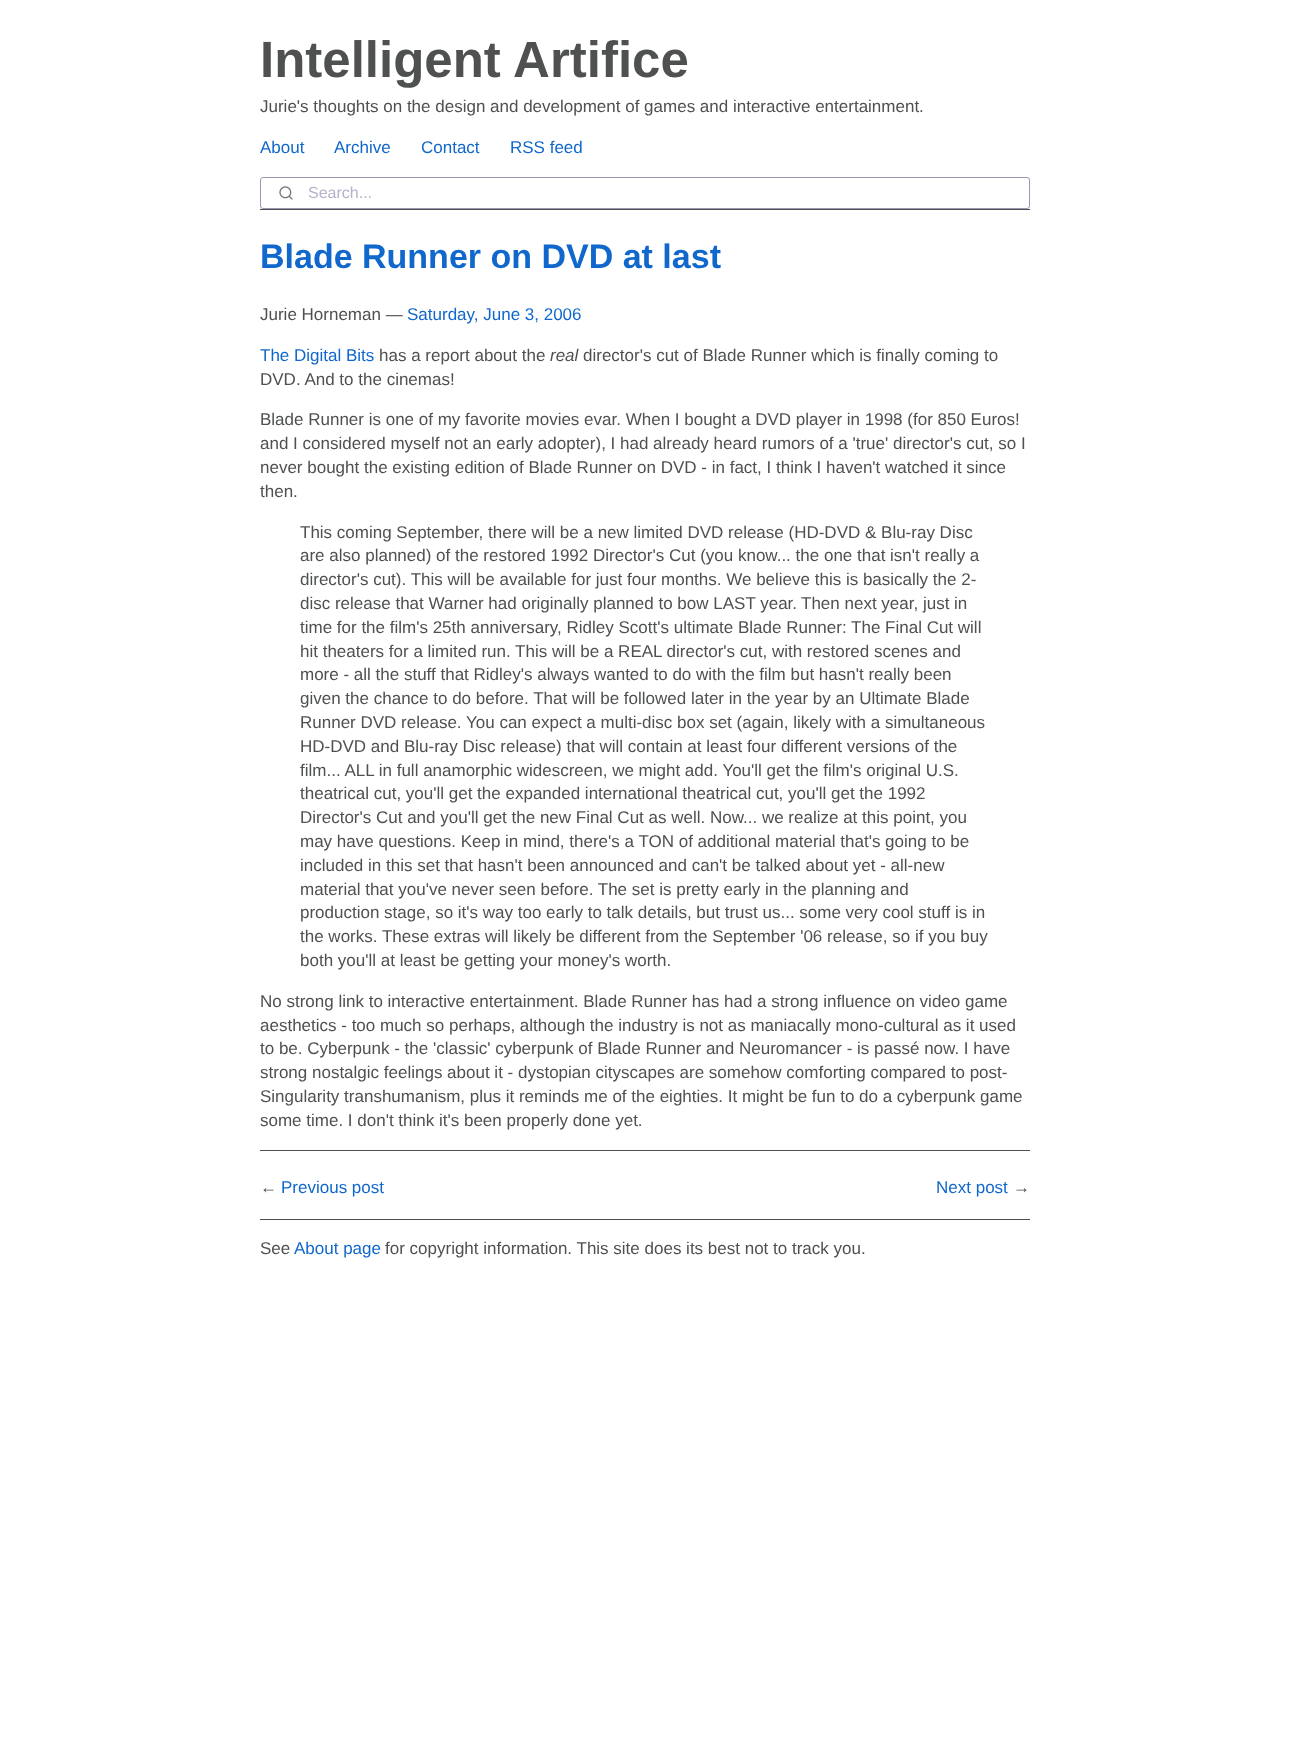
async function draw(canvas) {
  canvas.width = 1289;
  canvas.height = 1757;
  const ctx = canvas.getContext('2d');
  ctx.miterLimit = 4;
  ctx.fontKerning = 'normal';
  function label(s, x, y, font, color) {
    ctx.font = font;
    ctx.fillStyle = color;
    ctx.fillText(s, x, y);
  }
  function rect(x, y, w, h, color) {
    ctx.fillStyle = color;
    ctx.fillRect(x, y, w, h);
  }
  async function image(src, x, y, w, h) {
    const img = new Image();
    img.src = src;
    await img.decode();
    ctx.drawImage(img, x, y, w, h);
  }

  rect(0, 0, 1289, 1757, '#fff');
  rect(260, 209, 770, 1, '#4f5151');
  label('Intelligent Artifice', 260, 77, 'bold 51px Liberation Sans', '#4f5151');
  label('Jurie\'s thoughts on the design and development of games and interactive entertainment.', 260, 112, '17px Liberation Sans', '#4f5151');
  label('About', 260, 153, '17px Liberation Sans', '#1168cc');
  label('Archive', 334, 153, '17px Liberation Sans', '#1168cc');
  label('Contact', 421, 153, '17px Liberation Sans', '#1168cc');
  label('RSS feed', 510, 153, '17px Liberation Sans', '#1168cc');
  ctx.beginPath();
  ctx.roundRect(260.5, 177.5, 769, 31, 2.5);
  ctx.strokeStyle = '#9998b5';
  ctx.stroke();
  await image('assets/img1.png', 279, 186, 14, 14);
  label('Search...', 308, 198, '16px Liberation Sans', '#b3b2c8');
  label('Blade Runner on DVD at last', 260, 268, 'bold 34px Liberation Sans', '#1168cc');
  label('Jurie Horneman —', 260, 320, '17px Liberation Sans', '#4f5151');
  label('Saturday, June 3, 2006', 407, 320, '17px Liberation Sans', '#1168cc');
  label('The Digital Bits', 260, 361, '17px Liberation Sans', '#1168cc');
  label('has a report about the', 379, 361, '17px Liberation Sans', '#4f5151');
  label('real', 550, 361, 'italic 17px Liberation Sans', '#4f5151');
  label('director\'s cut of Blade Runner which is finally coming to', 583, 361, '17px Liberation Sans', '#4f5151');
  label('DVD. And to the cinemas!', 260, 385, '17px Liberation Sans', '#4f5151');
  label('Blade Runner is one of my favorite movies evar. When I bought a DVD player in 1998 (for 850 Euros!', 260, 425, '17px Liberation Sans', '#4f5151');
  label('and I considered myself not an early adopter), I had already heard rumors of a \'true\' director\'s cut, so I', 260, 449, '17px Liberation Sans', '#4f5151');
  label('never bought the existing edition of Blade Runner on DVD - in fact, I think I haven\'t watched it since', 260, 473, '17px Liberation Sans', '#4f5151');
  label('then.', 260, 497, '17px Liberation Sans', '#4f5151');
  label('This coming September, there will be a new limited DVD release (HD-DVD & Blu-ray Disc', 300, 538, '17px Liberation Sans', '#4f5151');
  label('are also planned) of the restored 1992 Director\'s Cut (you know... the one that isn\'t really a', 300, 561, '17px Liberation Sans', '#4f5151');
  label('director\'s cut). This will be available for just four months. We believe this is basically the 2-', 300, 585, '17px Liberation Sans', '#4f5151');
  label('disc release that Warner had originally planned to bow LAST year.', 300, 609, '17px Liberation Sans', '#4f5151');
  label('Then next year, just in', 801, 609, '17px Liberation Sans', '#4f5151');
  label('time for the film\'s 25th anniversary, Ridley Scott\'s ultimate Blade Runner: The Final Cut will', 300, 633, '17px Liberation Sans', '#4f5151');
  label('hit theaters for a limited run. This will be a REAL director\'s cut, with restored scenes and', 300, 657, '17px Liberation Sans', '#4f5151');
  label('more - all the stuff that Ridley\'s always wanted to do with the film but hasn\'t really been', 300, 680, '17px Liberation Sans', '#4f5151');
  label('given the chance to do before. That will be followed later in the year by an Ultimate Blade', 300, 704, '17px Liberation Sans', '#4f5151');
  label('Runner DVD release. You can expect a multi-disc box set (again, likely with a simultaneous', 300, 728, '17px Liberation Sans', '#4f5151');
  label('HD-DVD and Blu-ray Disc release) that will contain at least four different versions of the', 300, 752, '17px Liberation Sans', '#4f5151');
  label('film... ALL in full anamorphic widescreen, we might add. You\'ll get the film\'s original U.S.', 300, 776, '17px Liberation Sans', '#4f5151');
  label('theatrical cut, you\'ll get the expanded international theatrical cut, you\'ll get the 1992', 300, 799, '17px Liberation Sans', '#4f5151');
  label('Director\'s Cut and you\'ll get the new Final Cut as well. Now... we realize at this point, you', 300, 823, '17px Liberation Sans', '#4f5151');
  label('may have questions. Keep in mind, there\'s a TON of additional material that\'s going to be', 300, 847, '17px Liberation Sans', '#4f5151');
  label('included in this set that hasn\'t been announced and can\'t be talked about yet - all-new', 300, 871, '17px Liberation Sans', '#4f5151');
  label('material that you\'ve never seen before. The set is pretty early in the planning and', 300, 895, '17px Liberation Sans', '#4f5151');
  label('production stage, so it\'s way too early to talk details, but trust us... some very cool stuff is in', 300, 918, '17px Liberation Sans', '#4f5151');
  label('the works. These extras will likely be different from the September \'06 release, so if you buy', 300, 942, '17px Liberation Sans', '#4f5151');
  label('both you\'ll at least be getting your money\'s worth.', 300, 966, '17px Liberation Sans', '#4f5151');
  label('No strong link to interactive entertainment. Blade Runner has had a strong influence on video game', 260, 1007, '17px Liberation Sans', '#4f5151');
  label('aesthetics - too much so perhaps, although the industry is not as maniacally mono-cultural as it used', 260, 1031, '17px Liberation Sans', '#4f5151');
  label('to be. Cyberpunk - the \'classic\' cyberpunk of Blade Runner and Neuromancer - is passé now. I have', 260, 1054, '17px Liberation Sans', '#4f5151');
  label('strong nostalgic feelings about it - dystopian cityscapes are somehow comforting compared to post-', 260, 1078, '17px Liberation Sans', '#4f5151');
  label('Singularity transhumanism, plus it reminds me of the eighties. It might be fun to do a cyberpunk game', 260, 1102, '17px Liberation Sans', '#4f5151');
  label('some time. I don\'t think it\'s been properly done yet.', 260, 1126, '17px Liberation Sans', '#4f5151');
  rect(260, 1150, 770, 1, '#4f5151');
  label('←', 260, 1193, '17px Liberation Sans', '#4f5151');
  label('Previous post', 281, 1193, '17px Liberation Sans', '#1168cc');
  label('Next post', 936, 1193, '17px Liberation Sans', '#1168cc');
  label('→', 1013, 1193, '17px Liberation Sans', '#4f5151');
  rect(260, 1219, 770, 1, '#4f5151');
  label('See', 260, 1254, '17px Liberation Sans', '#4f5151');
  label('About page', 294, 1254, '17px Liberation Sans', '#1168cc');
  label('for copyright information. This site does its best not to track you.', 385, 1254, '17px Liberation Sans', '#4f5151');
}

draw(document.querySelector('canvas'));
